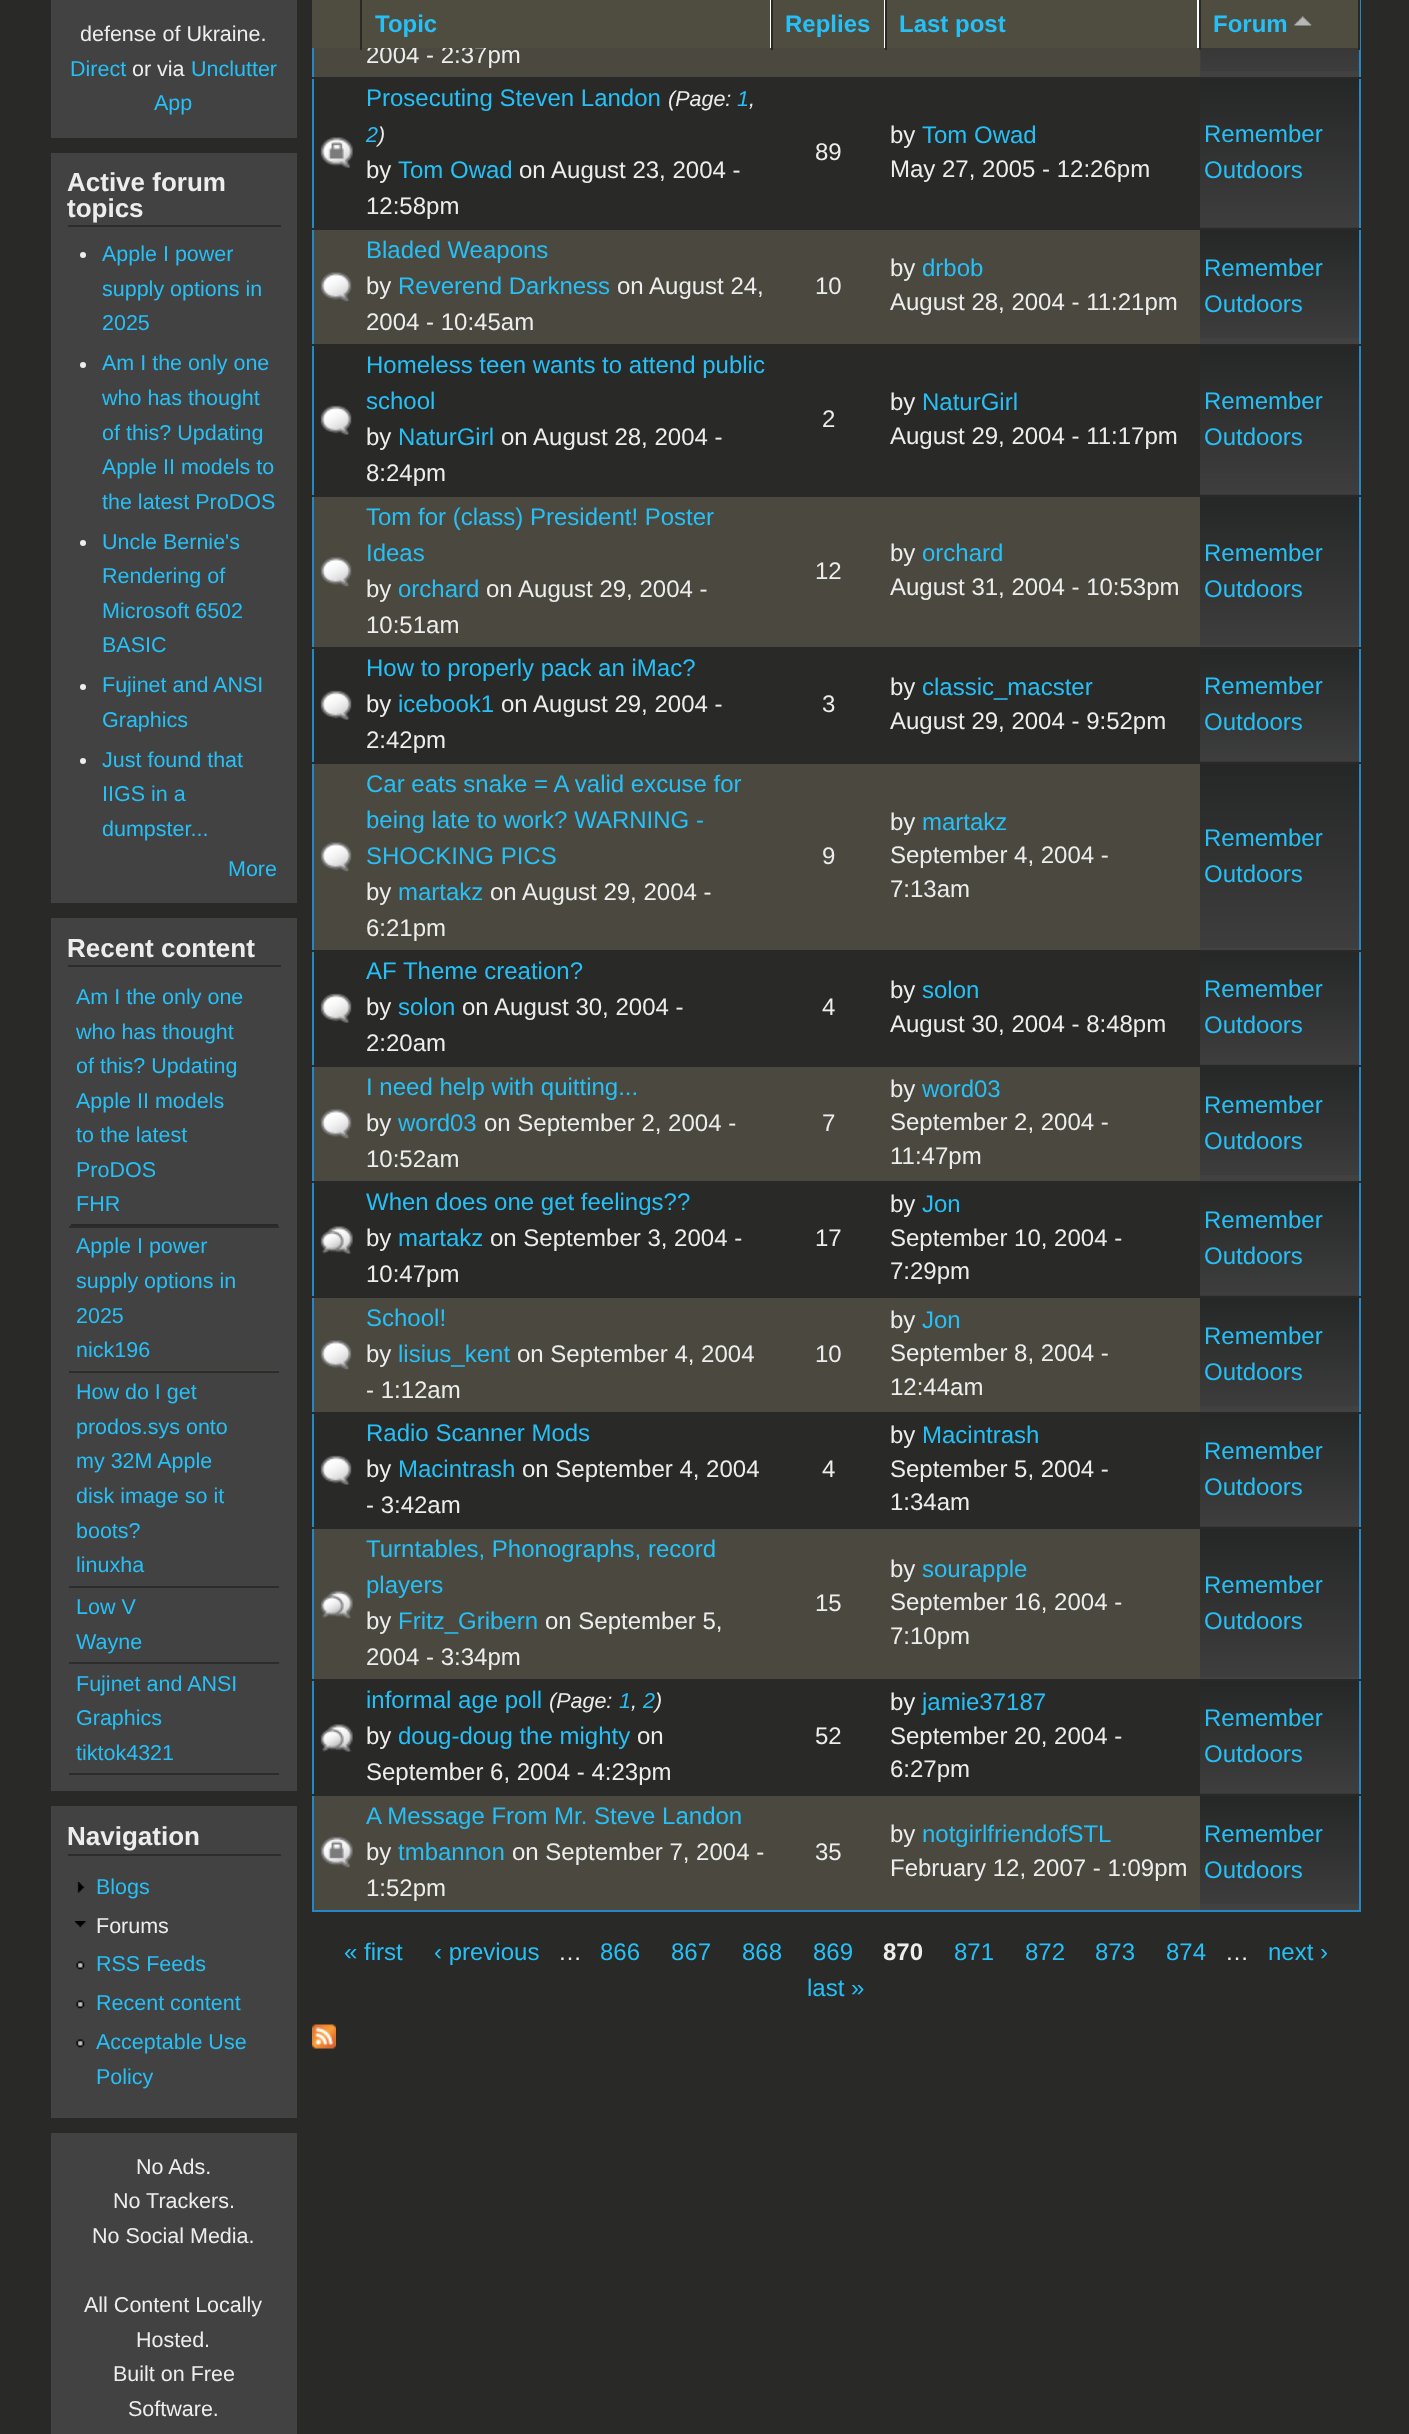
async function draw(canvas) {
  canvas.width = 1409;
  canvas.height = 2434;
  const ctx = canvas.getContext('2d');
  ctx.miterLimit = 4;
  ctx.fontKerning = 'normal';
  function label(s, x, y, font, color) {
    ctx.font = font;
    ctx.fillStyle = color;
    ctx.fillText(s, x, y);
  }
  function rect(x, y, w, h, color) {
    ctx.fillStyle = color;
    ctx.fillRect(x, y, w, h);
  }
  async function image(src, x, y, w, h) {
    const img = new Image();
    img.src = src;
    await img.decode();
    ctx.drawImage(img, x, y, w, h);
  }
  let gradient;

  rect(0, 0, 1409, 2434, '#292928');
  rect(51, 0, 246, 138, '#424242');
  label('defense of Ukraine.', 80, 41, '21.5px Liberation Sans', '#ecedec');
  label('Direct', 70, 76, '21.5px Liberation Sans', '#26c0f7');
  label('or via', 132, 76, '21.5px Liberation Sans', '#ecedec');
  label('Unclutter', 191, 76, '21.5px Liberation Sans', '#26c0f7');
  label('App', 154, 110, '21.5px Liberation Sans', '#26c0f7');
  rect(51, 153, 246, 750, '#424242');
  rect(68, 225, 213, 2, '#2c2c2c');
  label('Active forum', 67, 191, 'bold 26px Liberation Sans', '#ecedec');
  label('topics', 67, 217, 'bold 26px Liberation Sans', '#ecedec');
  ctx.beginPath();
  ctx.arc(83, 255, 3, 0, 2 * Math.PI);
  ctx.fill();
  label('Apple I power', 102, 261, '21.5px Liberation Sans', '#26c0f7');
  label('supply options in', 102, 296, '21.5px Liberation Sans', '#26c0f7');
  label('2025', 102, 330, '21.5px Liberation Sans', '#26c0f7');
  ctx.fillStyle = '#ecedec';
  ctx.beginPath();
  ctx.arc(83, 365, 3, 0, 2 * Math.PI);
  ctx.fill();
  label('Am I the only one', 102, 370, '21.5px Liberation Sans', '#26c0f7');
  label('who has thought', 102, 405, '21.5px Liberation Sans', '#26c0f7');
  label('of this? Updating', 102, 440, '21.5px Liberation Sans', '#26c0f7');
  label('Apple II models to', 102, 474, '21.5px Liberation Sans', '#26c0f7');
  label('the latest ProDOS', 102, 509, '21.5px Liberation Sans', '#26c0f7');
  ctx.fillStyle = '#ecedec';
  ctx.beginPath();
  ctx.arc(83, 543, 3, 0, 2 * Math.PI);
  ctx.fill();
  label('Uncle Bernie\'s', 102, 549, '21.5px Liberation Sans', '#26c0f7');
  label('Rendering of', 102, 583, '21.5px Liberation Sans', '#26c0f7');
  label('Microsoft 6502', 102, 618, '21.5px Liberation Sans', '#26c0f7');
  label('BASIC', 102, 652, '21.5px Liberation Sans', '#26c0f7');
  ctx.fillStyle = '#ecedec';
  ctx.beginPath();
  ctx.arc(83, 687, 3, 0, 2 * Math.PI);
  ctx.fill();
  label('Fujinet and ANSI', 102, 692, '21.5px Liberation Sans', '#26c0f7');
  label('Graphics', 102, 727, '21.5px Liberation Sans', '#26c0f7');
  ctx.fillStyle = '#ecedec';
  ctx.beginPath();
  ctx.arc(83, 761, 3, 0, 2 * Math.PI);
  ctx.fill();
  label('Just found that', 102, 767, '21.5px Liberation Sans', '#26c0f7');
  label('IIGS in a', 102, 801, '21.5px Liberation Sans', '#26c0f7');
  label('dumpster...', 102, 836, '21.5px Liberation Sans', '#26c0f7');
  label('More', 228, 876, '21.5px Liberation Sans', '#26c0f7');
  rect(51, 918, 246, 873, '#424242');
  rect(68, 965, 213, 2, '#2c2c2c');
  label('Recent content', 67, 957, 'bold 26px Liberation Sans', '#ecedec');
  rect(71, 1224, 207, 2, '#282928');
  label('Am I the only one', 76, 1004, '21.5px Liberation Sans', '#26c0f7');
  label('who has thought', 76, 1039, '21.5px Liberation Sans', '#26c0f7');
  label('of this? Updating', 76, 1073, '21.5px Liberation Sans', '#26c0f7');
  label('Apple II models', 76, 1108, '21.5px Liberation Sans', '#26c0f7');
  label('to the latest', 76, 1142, '21.5px Liberation Sans', '#26c0f7');
  label('ProDOS', 76, 1177, '21.5px Liberation Sans', '#26c0f7');
  label('FHR', 76, 1211, '21.5px Liberation Sans', '#26c0f7');
  rect(69, 1226, 210, 2, '#2c2c2c');
  rect(71, 1370, 207, 1, '#4a483f');
  label('Apple I power', 76, 1253, '21.5px Liberation Sans', '#26c0f7');
  label('supply options in', 76, 1288, '21.5px Liberation Sans', '#26c0f7');
  label('2025', 76, 1323, '21.5px Liberation Sans', '#26c0f7');
  label('nick196', 76, 1357, '21.5px Liberation Sans', '#26c0f7');
  rect(69, 1371, 210, 2, '#2c2c2c');
  label('How do I get', 76, 1399, '21.5px Liberation Sans', '#26c0f7');
  label('prodos.sys onto', 76, 1434, '21.5px Liberation Sans', '#26c0f7');
  label('my 32M Apple', 76, 1468, '21.5px Liberation Sans', '#26c0f7');
  label('disk image so it', 76, 1503, '21.5px Liberation Sans', '#26c0f7');
  label('boots?', 76, 1538, '21.5px Liberation Sans', '#26c0f7');
  label('linuxha', 76, 1572, '21.5px Liberation Sans', '#26c0f7');
  rect(69, 1586, 210, 2, '#2c2c2c');
  label('Low V', 76, 1614, '21.5px Liberation Sans', '#26c0f7');
  label('Wayne', 76, 1649, '21.5px Liberation Sans', '#26c0f7');
  rect(69, 1662, 210, 2, '#2c2c2c');
  label('Fujinet and ANSI', 76, 1691, '21.5px Liberation Sans', '#26c0f7');
  label('Graphics', 76, 1725, '21.5px Liberation Sans', '#26c0f7');
  label('tiktok4321', 76, 1760, '21.5px Liberation Sans', '#26c0f7');
  rect(69, 1773, 210, 2, '#2c2c2c');
  rect(51, 1806, 246, 312, '#424242');
  rect(68, 1854, 213, 2, '#2c2c2c');
  label('Navigation', 67, 1845, 'bold 26px Liberation Sans', '#ecedec');
  await image('assets/img1.png', 77, 1882, 8, 11);
  label('Blogs', 96, 1894, '21.5px Liberation Sans', '#26c0f7');
  await image('assets/img2.png', 75, 1921, 11, 7);
  label('Forums', 96, 1933, '21.5px Liberation Sans', '#ecedec');
  await image('assets/img3.png', 76, 1961, 9, 9);
  label('RSS Feeds', 96, 1971, '21.5px Liberation Sans', '#26c0f7');
  await image('assets/img3.png', 76, 2000, 9, 9);
  label('Recent content', 96, 2010, '21.5px Liberation Sans', '#26c0f7');
  await image('assets/img3.png', 76, 2039, 9, 9);
  label('Acceptable Use', 96, 2049, '21.5px Liberation Sans', '#26c0f7');
  label('Policy', 96, 2084, '21.5px Liberation Sans', '#26c0f7');
  rect(51, 2133, 246, 301, '#424242');
  label('No Ads.', 136, 2174, '21.5px Liberation Sans', '#ecedec');
  label('No Trackers.', 113, 2208, '21.5px Liberation Sans', '#ecedec');
  label('No Social Media.', 92, 2243, '21.5px Liberation Sans', '#ecedec');
  label('All Content Locally', 84, 2312, '21.5px Liberation Sans', '#ecedec');
  label('Hosted.', 136, 2347, '21.5px Liberation Sans', '#ecedec');
  label('Built on Free', 113, 2381, '21.5px Liberation Sans', '#ecedec');
  label('Software.', 128, 2416, '21.5px Liberation Sans', '#ecedec');
  rect(770, 0, 429, 48, '#fff');
  rect(312, 0, 48, 48, '#4f4c40');
  rect(314, 48, 886, 29, '#4a483f');
  rect(360, 48, 2, 2, '#282928');
  label('2004 - 2:37pm', 366, 63, '24px Liberation Sans', '#ecedec');
  rect(362, 0, 408, 48, '#4f4c40');
  rect(771, 0, 2, 50, '#282928');
  label('Topic', 375, 32, 'bold 24px Liberation Sans', '#26c0f7');
  rect(773, 0, 111, 48, '#4f4c40');
  rect(885, 0, 2, 50, '#282928');
  label('Replies', 785, 32, 'bold 24px Liberation Sans', '#26c0f7');
  rect(887, 0, 310, 48, '#4f4c40');
  rect(1199, 48, 1, 2, '#282928');
  label('Last post', 899, 32, 'bold 24px Liberation Sans', '#26c0f7');
  rect(1201, 0, 157, 48, '#4f4c40');
  rect(1359, 0, 2, 1911, '#2587c4');
  rect(1359, 0, 1, 50, '#282928');
  label('Forum', 1213, 32, 'bold 24px Liberation Sans', '#26c0f7');
  await image('assets/img4.png', 1294, 16, 18, 10);
  rect(312, 1910, 1049, 2, '#2587c4');
  rect(312, 48, 2, 1863, '#2587c4');
  gradient = ctx.createLinearGradient(314, -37, 314, 77);
  gradient.addColorStop(0, '#282929');
  gradient.addColorStop(1, '#424242');
  ctx.fillStyle = gradient;
  ctx.fillRect(1200, 50, 159, 27);
  await image('assets/img5.png', 1201, 48, 157, 23);
  gradient = ctx.createLinearGradient(314, 78, 314, 228);
  gradient.addColorStop(0, '#282929');
  gradient.addColorStop(1, '#424242');
  ctx.fillStyle = gradient;
  ctx.fillRect(1200, 227, 159, 1);
  rect(312, 77, 1049, 2, '#282928');
  await image('assets/img6.png', 320, 137, 33, 31);
  label('Prosecuting Steven Landon', 366, 106, '24px Liberation Sans', '#26c0f7');
  label('(Page:', 668, 106, 'italic 21.5px Liberation Sans', '#ecedec');
  label('1', 737, 106, 'italic 21.5px Liberation Sans', '#26c0f7');
  label(',', 749, 106, 'italic 21.5px Liberation Sans', '#ecedec');
  label('2', 366, 142, 'italic 21.5px Liberation Sans', '#26c0f7');
  label(')', 378, 142, 'italic 21.5px Liberation Sans', '#ecedec');
  label('by', 366, 178, '24px Liberation Sans', '#ecedec');
  label('Tom Owad', 398, 178, '24px Liberation Sans', '#26c0f7');
  label('on August 23, 2004 -', 519, 178, '24px Liberation Sans', '#ecedec');
  label('12:58pm', 366, 214, '24px Liberation Sans', '#ecedec');
  label('89', 815, 160, '24px Liberation Sans', '#ecedec');
  label('by', 890, 143, '24px Liberation Sans', '#ecedec');
  label('Tom Owad', 922, 143, '24px Liberation Sans', '#26c0f7');
  label('May 27, 2005 - 12:26pm', 890, 177, '24px Liberation Sans', '#ecedec');
  await image('assets/img7.png', 1200, 79, 159, 149);
  label('Remember', 1204, 142, '24px Liberation Sans', '#26c0f7');
  label('Outdoors', 1204, 178, '24px Liberation Sans', '#26c0f7');
  gradient = ctx.createLinearGradient(314, 230, 314, 344);
  gradient.addColorStop(0, '#282929');
  gradient.addColorStop(1, '#424242');
  ctx.fillStyle = gradient;
  ctx.fillRect(1200, 338, 159, 6);
  rect(312, 228, 1049, 2, '#282928');
  rect(314, 230, 886, 114, '#4a483f');
  await image('assets/img8.png', 320, 272, 32, 30);
  label('Bladed Weapons', 366, 258, '24px Liberation Sans', '#26c0f7');
  label('by', 366, 294, '24px Liberation Sans', '#ecedec');
  label('Reverend Darkness', 398, 294, '24px Liberation Sans', '#26c0f7');
  label('on August 24,', 617, 294, '24px Liberation Sans', '#ecedec');
  label('2004 - 10:45am', 366, 330, '24px Liberation Sans', '#ecedec');
  label('10', 815, 294, '24px Liberation Sans', '#ecedec');
  label('by', 890, 276, '24px Liberation Sans', '#ecedec');
  label('drbob', 922, 276, '24px Liberation Sans', '#26c0f7');
  label('August 28, 2004 - 11:21pm', 890, 310, '24px Liberation Sans', '#ecedec');
  await image('assets/img9.png', 1200, 230, 159, 108);
  label('Remember', 1204, 276, '24px Liberation Sans', '#26c0f7');
  label('Outdoors', 1204, 312, '24px Liberation Sans', '#26c0f7');
  gradient = ctx.createLinearGradient(314, 345, 314, 495);
  gradient.addColorStop(0, '#282929');
  gradient.addColorStop(1, '#424242');
  ctx.fillStyle = gradient;
  ctx.fillRect(1200, 494, 159, 1);
  rect(312, 344, 1049, 2, '#282928');
  await image('assets/img10.png', 320, 405, 32, 30);
  label('Homeless teen wants to attend public', 366, 373, '24px Liberation Sans', '#26c0f7');
  label('school', 366, 409, '24px Liberation Sans', '#26c0f7');
  label('by', 366, 445, '24px Liberation Sans', '#ecedec');
  label('NaturGirl', 398, 445, '24px Liberation Sans', '#26c0f7');
  label('on August 28, 2004 -', 501, 445, '24px Liberation Sans', '#ecedec');
  label('8:24pm', 366, 481, '24px Liberation Sans', '#ecedec');
  label('2', 822, 427, '24px Liberation Sans', '#ecedec');
  label('by', 890, 410, '24px Liberation Sans', '#ecedec');
  label('NaturGirl', 922, 410, '24px Liberation Sans', '#26c0f7');
  label('August 29, 2004 - 11:17pm', 890, 444, '24px Liberation Sans', '#ecedec');
  await image('assets/img7.png', 1200, 346, 159, 149);
  label('Remember', 1204, 409, '24px Liberation Sans', '#26c0f7');
  label('Outdoors', 1204, 445, '24px Liberation Sans', '#26c0f7');
  gradient = ctx.createLinearGradient(314, 497, 314, 647);
  gradient.addColorStop(0, '#282929');
  gradient.addColorStop(1, '#424242');
  ctx.fillStyle = gradient;
  ctx.fillRect(1200, 645, 159, 2);
  rect(312, 495, 1049, 2, '#282928');
  rect(314, 497, 886, 150, '#4a483f');
  await image('assets/img8.png', 320, 557, 32, 30);
  label('Tom for (class) President! Poster', 366, 525, '24px Liberation Sans', '#26c0f7');
  label('Ideas', 366, 561, '24px Liberation Sans', '#26c0f7');
  label('by', 366, 597, '24px Liberation Sans', '#ecedec');
  label('orchard', 398, 597, '24px Liberation Sans', '#26c0f7');
  label('on August 29, 2004 -', 486, 597, '24px Liberation Sans', '#ecedec');
  label('10:51am', 366, 633, '24px Liberation Sans', '#ecedec');
  label('12', 815, 579, '24px Liberation Sans', '#ecedec');
  label('by', 890, 561, '24px Liberation Sans', '#ecedec');
  label('orchard', 922, 561, '24px Liberation Sans', '#26c0f7');
  label('August 31, 2004 - 10:53pm', 890, 595, '24px Liberation Sans', '#ecedec');
  await image('assets/img11.png', 1200, 497, 159, 148);
  label('Remember', 1204, 561, '24px Liberation Sans', '#26c0f7');
  label('Outdoors', 1204, 597, '24px Liberation Sans', '#26c0f7');
  gradient = ctx.createLinearGradient(314, 648, 314, 762);
  gradient.addColorStop(0, '#282929');
  gradient.addColorStop(1, '#424242');
  ctx.fillStyle = gradient;
  ctx.fillRect(1200, 761, 159, 1);
  rect(312, 647, 1049, 2, '#282928');
  await image('assets/img10.png', 320, 690, 32, 30);
  label('How to properly pack an iMac?', 366, 676, '24px Liberation Sans', '#26c0f7');
  label('by', 366, 712, '24px Liberation Sans', '#ecedec');
  label('icebook1', 398, 712, '24px Liberation Sans', '#26c0f7');
  label('on August 29, 2004 -', 501, 712, '24px Liberation Sans', '#ecedec');
  label('2:42pm', 366, 748, '24px Liberation Sans', '#ecedec');
  label('3', 822, 712, '24px Liberation Sans', '#ecedec');
  label('by', 890, 695, '24px Liberation Sans', '#ecedec');
  label('classic_macster', 922, 695, '24px Liberation Sans', '#26c0f7');
  label('August 29, 2004 - 9:52pm', 890, 729, '24px Liberation Sans', '#ecedec');
  await image('assets/img12.png', 1200, 649, 159, 113);
  label('Remember', 1204, 694, '24px Liberation Sans', '#26c0f7');
  label('Outdoors', 1204, 730, '24px Liberation Sans', '#26c0f7');
  gradient = ctx.createLinearGradient(314, 764, 314, 950);
  gradient.addColorStop(0, '#282929');
  gradient.addColorStop(1, '#424242');
  ctx.fillStyle = gradient;
  ctx.fillRect(1200, 948, 159, 2);
  rect(312, 762, 1049, 2, '#282928');
  rect(314, 764, 886, 186, '#4a483f');
  await image('assets/img8.png', 320, 842, 32, 30);
  label('Car eats snake = A valid excuse for', 366, 792, '24px Liberation Sans', '#26c0f7');
  label('being late to work? WARNING -', 366, 828, '24px Liberation Sans', '#26c0f7');
  label('SHOCKING PICS', 366, 864, '24px Liberation Sans', '#26c0f7');
  label('by', 366, 900, '24px Liberation Sans', '#ecedec');
  label('martakz', 398, 900, '24px Liberation Sans', '#26c0f7');
  label('on August 29, 2004 -', 490, 900, '24px Liberation Sans', '#ecedec');
  label('6:21pm', 366, 936, '24px Liberation Sans', '#ecedec');
  label('9', 822, 864, '24px Liberation Sans', '#ecedec');
  label('by', 890, 830, '24px Liberation Sans', '#ecedec');
  label('martakz', 922, 830, '24px Liberation Sans', '#26c0f7');
  label('September 4, 2004 -', 890, 863, '24px Liberation Sans', '#ecedec');
  label('7:13am', 890, 897, '24px Liberation Sans', '#ecedec');
  await image('assets/img13.png', 1200, 764, 159, 184);
  label('Remember', 1204, 846, '24px Liberation Sans', '#26c0f7');
  label('Outdoors', 1204, 882, '24px Liberation Sans', '#26c0f7');
  gradient = ctx.createLinearGradient(314, 951, 314, 1065);
  gradient.addColorStop(0, '#282929');
  gradient.addColorStop(1, '#424242');
  ctx.fillStyle = gradient;
  ctx.fillRect(1200, 1064, 159, 1);
  rect(312, 950, 1049, 2, '#282928');
  await image('assets/img10.png', 320, 993, 32, 30);
  label('AF Theme creation?', 366, 979, '24px Liberation Sans', '#26c0f7');
  label('by', 366, 1015, '24px Liberation Sans', '#ecedec');
  label('solon', 398, 1015, '24px Liberation Sans', '#26c0f7');
  label('on August 30, 2004 -', 462, 1015, '24px Liberation Sans', '#ecedec');
  label('2:20am', 366, 1051, '24px Liberation Sans', '#ecedec');
  label('4', 822, 1015, '24px Liberation Sans', '#ecedec');
  label('by', 890, 998, '24px Liberation Sans', '#ecedec');
  label('solon', 922, 998, '24px Liberation Sans', '#26c0f7');
  label('August 30, 2004 - 8:48pm', 890, 1032, '24px Liberation Sans', '#ecedec');
  await image('assets/img12.png', 1200, 952, 159, 113);
  label('Remember', 1204, 997, '24px Liberation Sans', '#26c0f7');
  label('Outdoors', 1204, 1033, '24px Liberation Sans', '#26c0f7');
  gradient = ctx.createLinearGradient(314, 1067, 314, 1181);
  gradient.addColorStop(0, '#282929');
  gradient.addColorStop(1, '#424242');
  ctx.fillStyle = gradient;
  ctx.fillRect(1200, 1175, 159, 6);
  rect(312, 1065, 1049, 2, '#282928');
  rect(314, 1067, 886, 114, '#4a483f');
  await image('assets/img8.png', 320, 1109, 32, 30);
  label('I need help with quitting...', 366, 1095, '24px Liberation Sans', '#26c0f7');
  label('by', 366, 1131, '24px Liberation Sans', '#ecedec');
  label('word03', 398, 1131, '24px Liberation Sans', '#26c0f7');
  label('on September 2, 2004 -', 484, 1131, '24px Liberation Sans', '#ecedec');
  label('10:52am', 366, 1167, '24px Liberation Sans', '#ecedec');
  label('7', 822, 1131, '24px Liberation Sans', '#ecedec');
  label('by', 890, 1097, '24px Liberation Sans', '#ecedec');
  label('word03', 922, 1097, '24px Liberation Sans', '#26c0f7');
  label('September 2, 2004 -', 890, 1130, '24px Liberation Sans', '#ecedec');
  label('11:47pm', 890, 1164, '24px Liberation Sans', '#ecedec');
  await image('assets/img9.png', 1200, 1067, 159, 108);
  label('Remember', 1204, 1113, '24px Liberation Sans', '#26c0f7');
  label('Outdoors', 1204, 1149, '24px Liberation Sans', '#26c0f7');
  gradient = ctx.createLinearGradient(314, 1182, 314, 1296);
  gradient.addColorStop(0, '#282929');
  gradient.addColorStop(1, '#424242');
  ctx.fillStyle = gradient;
  ctx.fillRect(1200, 1295, 159, 1);
  rect(312, 1181, 1049, 2, '#282928');
  await image('assets/img14.png', 320, 1226, 33, 28);
  label('When does one get feelings??', 366, 1210, '24px Liberation Sans', '#26c0f7');
  label('by', 366, 1246, '24px Liberation Sans', '#ecedec');
  label('martakz', 398, 1246, '24px Liberation Sans', '#26c0f7');
  label('on September 3, 2004 -', 490, 1246, '24px Liberation Sans', '#ecedec');
  label('10:47pm', 366, 1282, '24px Liberation Sans', '#ecedec');
  label('17', 815, 1246, '24px Liberation Sans', '#ecedec');
  label('by', 890, 1212, '24px Liberation Sans', '#ecedec');
  label('Jon', 922, 1212, '24px Liberation Sans', '#26c0f7');
  label('September 10, 2004 -', 890, 1246, '24px Liberation Sans', '#ecedec');
  label('7:29pm', 890, 1279, '24px Liberation Sans', '#ecedec');
  await image('assets/img12.png', 1200, 1183, 159, 113);
  label('Remember', 1204, 1228, '24px Liberation Sans', '#26c0f7');
  label('Outdoors', 1204, 1264, '24px Liberation Sans', '#26c0f7');
  gradient = ctx.createLinearGradient(314, 1298, 314, 1412);
  gradient.addColorStop(0, '#282929');
  gradient.addColorStop(1, '#424242');
  ctx.fillStyle = gradient;
  ctx.fillRect(1200, 1406, 159, 6);
  rect(312, 1296, 1049, 2, '#282928');
  rect(314, 1298, 886, 114, '#4a483f');
  await image('assets/img8.png', 320, 1340, 32, 30);
  label('School!', 366, 1326, '24px Liberation Sans', '#26c0f7');
  label('by', 366, 1362, '24px Liberation Sans', '#ecedec');
  label('lisius_kent', 398, 1362, '24px Liberation Sans', '#26c0f7');
  label('on September 4, 2004', 517, 1362, '24px Liberation Sans', '#ecedec');
  label('- 1:12am', 366, 1398, '24px Liberation Sans', '#ecedec');
  label('10', 815, 1362, '24px Liberation Sans', '#ecedec');
  label('by', 890, 1328, '24px Liberation Sans', '#ecedec');
  label('Jon', 922, 1328, '24px Liberation Sans', '#26c0f7');
  label('September 8, 2004 -', 890, 1361, '24px Liberation Sans', '#ecedec');
  label('12:44am', 890, 1395, '24px Liberation Sans', '#ecedec');
  await image('assets/img9.png', 1200, 1298, 159, 108);
  label('Remember', 1204, 1344, '24px Liberation Sans', '#26c0f7');
  label('Outdoors', 1204, 1380, '24px Liberation Sans', '#26c0f7');
  gradient = ctx.createLinearGradient(314, 1413, 314, 1527);
  gradient.addColorStop(0, '#282929');
  gradient.addColorStop(1, '#424242');
  ctx.fillStyle = gradient;
  ctx.fillRect(1200, 1526, 159, 1);
  rect(312, 1412, 1049, 2, '#282928');
  await image('assets/img10.png', 320, 1455, 32, 30);
  label('Radio Scanner Mods', 366, 1441, '24px Liberation Sans', '#26c0f7');
  label('by', 366, 1477, '24px Liberation Sans', '#ecedec');
  label('Macintrash', 398, 1477, '24px Liberation Sans', '#26c0f7');
  label('on September 4, 2004', 522, 1477, '24px Liberation Sans', '#ecedec');
  label('- 3:42am', 366, 1513, '24px Liberation Sans', '#ecedec');
  label('4', 822, 1477, '24px Liberation Sans', '#ecedec');
  label('by', 890, 1443, '24px Liberation Sans', '#ecedec');
  label('Macintrash', 922, 1443, '24px Liberation Sans', '#26c0f7');
  label('September 5, 2004 -', 890, 1477, '24px Liberation Sans', '#ecedec');
  label('1:34am', 890, 1510, '24px Liberation Sans', '#ecedec');
  await image('assets/img12.png', 1200, 1414, 159, 113);
  label('Remember', 1204, 1459, '24px Liberation Sans', '#26c0f7');
  label('Outdoors', 1204, 1495, '24px Liberation Sans', '#26c0f7');
  gradient = ctx.createLinearGradient(314, 1529, 314, 1679);
  gradient.addColorStop(0, '#282929');
  gradient.addColorStop(1, '#424242');
  ctx.fillStyle = gradient;
  ctx.fillRect(1200, 1677, 159, 2);
  rect(312, 1527, 1049, 2, '#282928');
  rect(314, 1529, 886, 150, '#4a483f');
  await image('assets/img15.png', 320, 1590, 33, 29);
  label('Turntables, Phonographs, record', 366, 1557, '24px Liberation Sans', '#26c0f7');
  label('players', 366, 1593, '24px Liberation Sans', '#26c0f7');
  label('by', 366, 1629, '24px Liberation Sans', '#ecedec');
  label('Fritz_Gribern', 398, 1629, '24px Liberation Sans', '#26c0f7');
  label('on September 5,', 545, 1629, '24px Liberation Sans', '#ecedec');
  label('2004 - 3:34pm', 366, 1665, '24px Liberation Sans', '#ecedec');
  label('15', 815, 1611, '24px Liberation Sans', '#ecedec');
  label('by', 890, 1577, '24px Liberation Sans', '#ecedec');
  label('sourapple', 922, 1577, '24px Liberation Sans', '#26c0f7');
  label('September 16, 2004 -', 890, 1610, '24px Liberation Sans', '#ecedec');
  label('7:10pm', 890, 1644, '24px Liberation Sans', '#ecedec');
  await image('assets/img11.png', 1200, 1529, 159, 148);
  label('Remember', 1204, 1593, '24px Liberation Sans', '#26c0f7');
  label('Outdoors', 1204, 1629, '24px Liberation Sans', '#26c0f7');
  gradient = ctx.createLinearGradient(314, 1680, 314, 1794);
  gradient.addColorStop(0, '#282929');
  gradient.addColorStop(1, '#424242');
  ctx.fillStyle = gradient;
  ctx.fillRect(1200, 1793, 159, 1);
  rect(312, 1679, 1049, 2, '#282928');
  await image('assets/img14.png', 320, 1724, 33, 28);
  label('informal age poll', 366, 1708, '24px Liberation Sans', '#26c0f7');
  label('(Page:', 549, 1708, 'italic 21.5px Liberation Sans', '#ecedec');
  label('1', 619, 1708, 'italic 21.5px Liberation Sans', '#26c0f7');
  label(',', 631, 1708, 'italic 21.5px Liberation Sans', '#ecedec');
  label('2', 643, 1708, 'italic 21.5px Liberation Sans', '#26c0f7');
  label(')', 655, 1708, 'italic 21.5px Liberation Sans', '#ecedec');
  label('by', 366, 1744, '24px Liberation Sans', '#ecedec');
  label('doug-doug the mighty', 398, 1744, '24px Liberation Sans', '#26c0f7');
  label('on', 637, 1744, '24px Liberation Sans', '#ecedec');
  label('September 6, 2004 - 4:23pm', 366, 1780, '24px Liberation Sans', '#ecedec');
  label('52', 815, 1744, '24px Liberation Sans', '#ecedec');
  label('by', 890, 1710, '24px Liberation Sans', '#ecedec');
  label('jamie37187', 922, 1710, '24px Liberation Sans', '#26c0f7');
  label('September 20, 2004 -', 890, 1744, '24px Liberation Sans', '#ecedec');
  label('6:27pm', 890, 1777, '24px Liberation Sans', '#ecedec');
  await image('assets/img12.png', 1200, 1681, 159, 113);
  label('Remember', 1204, 1726, '24px Liberation Sans', '#26c0f7');
  label('Outdoors', 1204, 1762, '24px Liberation Sans', '#26c0f7');
  gradient = ctx.createLinearGradient(314, 1796, 314, 1910);
  gradient.addColorStop(0, '#282929');
  gradient.addColorStop(1, '#424242');
  ctx.fillStyle = gradient;
  ctx.fillRect(1200, 1904, 159, 6);
  rect(312, 1794, 1049, 2, '#282928');
  rect(314, 1796, 886, 114, '#4a483f');
  await image('assets/img16.png', 320, 1836, 33, 32);
  label('A Message From Mr. Steve Landon', 366, 1824, '24px Liberation Sans', '#26c0f7');
  label('by', 366, 1860, '24px Liberation Sans', '#ecedec');
  label('tmbannon', 398, 1860, '24px Liberation Sans', '#26c0f7');
  label('on September 7, 2004 -', 512, 1860, '24px Liberation Sans', '#ecedec');
  label('1:52pm', 366, 1896, '24px Liberation Sans', '#ecedec');
  label('35', 815, 1860, '24px Liberation Sans', '#ecedec');
  label('by', 890, 1842, '24px Liberation Sans', '#ecedec');
  label('notgirlfriendofSTL', 922, 1842, '24px Liberation Sans', '#26c0f7');
  label('February 12, 2007 - 1:09pm', 890, 1876, '24px Liberation Sans', '#ecedec');
  await image('assets/img9.png', 1200, 1796, 159, 108);
  label('Remember', 1204, 1842, '24px Liberation Sans', '#26c0f7');
  label('Outdoors', 1204, 1878, '24px Liberation Sans', '#26c0f7');
  label('« first', 344, 1960, '24px Liberation Sans', '#26c0f7');
  label('‹ previous', 434, 1960, '24px Liberation Sans', '#26c0f7');
  label('…', 558, 1960, '24px Liberation Sans', '#ecedec');
  label('866', 600, 1960, '24px Liberation Sans', '#26c0f7');
  label('867', 671, 1960, '24px Liberation Sans', '#26c0f7');
  label('868', 742, 1960, '24px Liberation Sans', '#26c0f7');
  label('869', 813, 1960, '24px Liberation Sans', '#26c0f7');
  label('870', 883, 1960, 'bold 24px Liberation Sans', '#ecedec');
  label('871', 954, 1960, '24px Liberation Sans', '#26c0f7');
  label('872', 1025, 1960, '24px Liberation Sans', '#26c0f7');
  label('873', 1095, 1960, '24px Liberation Sans', '#26c0f7');
  label('874', 1166, 1960, '24px Liberation Sans', '#26c0f7');
  label('…', 1225, 1960, '24px Liberation Sans', '#ecedec');
  label('next ›', 1268, 1960, '24px Liberation Sans', '#26c0f7');
  label('last »', 807, 1996, '24px Liberation Sans', '#26c0f7');
  await image('assets/img17.png', 312, 2024, 24, 25);
}

draw(document.querySelector('canvas'));
